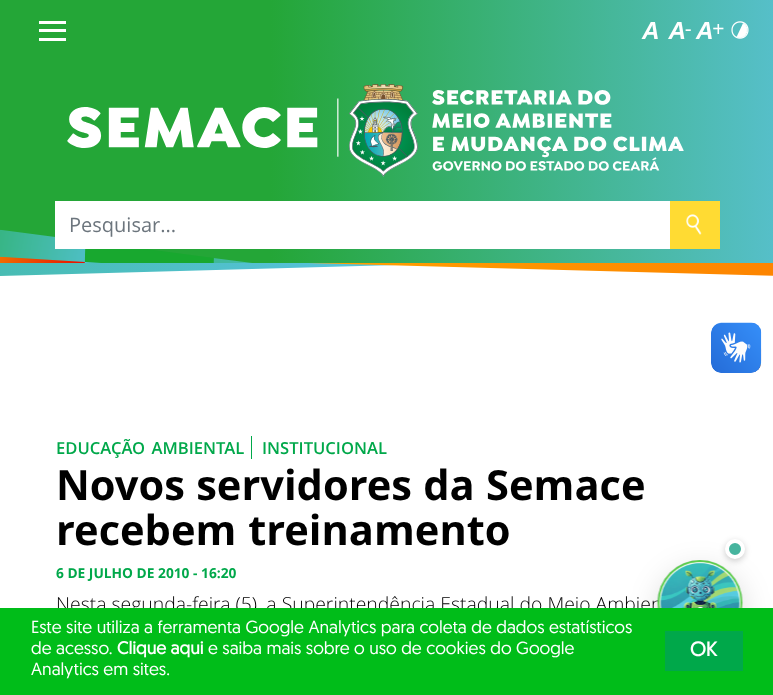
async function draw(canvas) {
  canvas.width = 773;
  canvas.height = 695;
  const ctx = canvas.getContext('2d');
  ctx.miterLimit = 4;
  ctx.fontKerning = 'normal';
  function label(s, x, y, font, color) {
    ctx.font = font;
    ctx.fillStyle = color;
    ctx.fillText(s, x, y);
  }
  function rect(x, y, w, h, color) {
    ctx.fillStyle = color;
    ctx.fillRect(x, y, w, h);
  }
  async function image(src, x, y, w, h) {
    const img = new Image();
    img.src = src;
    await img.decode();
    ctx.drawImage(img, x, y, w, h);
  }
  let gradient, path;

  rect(0, 0, 773, 695, '#fff');
  gradient = ctx.createLinearGradient(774, 154, 0, 154);
  gradient.addColorStop(0, '#56bfc9');
  gradient.addColorStop(0.65, '#24a637');
  ctx.fillStyle = gradient;
  ctx.fillRect(0, 0, 773, 263);
  await image('assets/img1.png', 0, 229, 252, 34);
  rect(39, 21, 27, 3, '#fff');
  rect(39, 29, 27, 3, '#fff');
  rect(39, 38, 27, 3, '#fff');
  await image('assets/img2.png', 641, 22, 17, 17);
  await image('assets/img3.png', 668, 22, 23, 17);
  await image('assets/img4.png', 695, 22, 29, 17);
  await image('assets/img5.png', 731, 21, 18, 18);
  await image('assets/img6.png', 67, 84, 617, 93);
  rect(55, 201, 615, 48, '#fff');
  label('Pesquisar...', 69, 232, '20px Open Sans', '#6c757d');
  rect(670, 201, 50, 48, '#ffdb33');
  await image('assets/img7.png', 686, 214, 16, 21);
  gradient = ctx.createLinearGradient(-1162, 301, 468, 301);
  gradient.addColorStop(0, '#18a82f');
  gradient.addColorStop(1, '#5bc4e8');
  ctx.fillStyle = gradient;
  path = new Path2D('M-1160 263V308L468 263Z');
  ctx.fill(path);
  gradient = ctx.createLinearGradient(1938, 271, 308, 271);
  gradient.addColorStop(0, '#f83d00');
  gradient.addColorStop(1, '#ffa100');
  ctx.fillStyle = gradient;
  path = new Path2D('M308 263L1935 308V263Z');
  ctx.fill(path);
  ctx.wordSpacing = '2px';
  label('EDUCAÇÃO AMBIENTAL', 56, 454, '600 16.6px Open Sans', '#00a84a');
  rect(251, 436, 1, 23, '#00a84a');
  ctx.wordSpacing = '0px';
  label('INSTITUCIONAL', 262, 454, '600 16.6px Open Sans', '#00a84a');
  ctx.wordSpacing = '0.5px';
  label('Novos servidores da Semace', 56, 500, 'bold 41.6px Open Sans', '#000');
  ctx.wordSpacing = '1px';
  label('recebem treinamento', 56, 545, 'bold 41.6px Open Sans', '#000');
  ctx.wordSpacing = '0px';
  label('6 DE JULHO DE 2010 - 16:20', 56, 578, 'bold 13.75px Open Sans', '#00a84a');
  label('Nesta segunda-feira (5), a Superintendência Estadual do Meio Ambien', 56, 611, '300 19.4px Open Sans', '#000');
  await image('assets/img8.png', 711, 322, 51, 51);
  await image('assets/img9.png', 711, 323, 50, 50);
  ctx.fillStyle = '#00000026';
  ctx.filter = 'blur(15.5px)';
  ctx.beginPath();
  ctx.roundRect(658, 570, 85, 85, 42.5);
  ctx.fill();
  ctx.filter = 'none';
  await image('assets/img10.png', 657, 560, 86, 48);
  ctx.fillStyle = '#00000033';
  ctx.filter = 'blur(3px)';
  ctx.beginPath();
  ctx.roundRect(725, 541, 20, 20, 10);
  ctx.fill();
  ctx.filter = 'none';
  ctx.fillStyle = '#46b49e';
  ctx.beginPath();
  ctx.arc(735, 549, 8, 0, 2 * Math.PI);
  ctx.fill();
  ctx.strokeStyle = '#fff';
  ctx.lineWidth = 4;
  ctx.stroke();
  rect(0, 608, 773, 87, '#00bd19');
  label('Este site utiliza a ferramenta Google Analytics para coleta de dados estatísticos', 31, 633, '17.5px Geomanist', '#fff');
  label('de acesso.', 31, 654, '17.5px Geomanist', '#fff');
  label('Clique aqui', 117, 654, 'bold 17.5px Geomanist', '#fff');
  label('e saiba mais sobre o uso de cookies do Google', 208, 654, '17.5px Geomanist', '#fff');
  label('Analytics em sites.', 31, 675, '17.5px Geomanist', '#fff');
  rect(665, 631, 78, 40, '#00a84a');
  label('OK', 690, 656, 'bold 20px Geomanist', '#fff');
}

draw(document.querySelector('canvas'));
